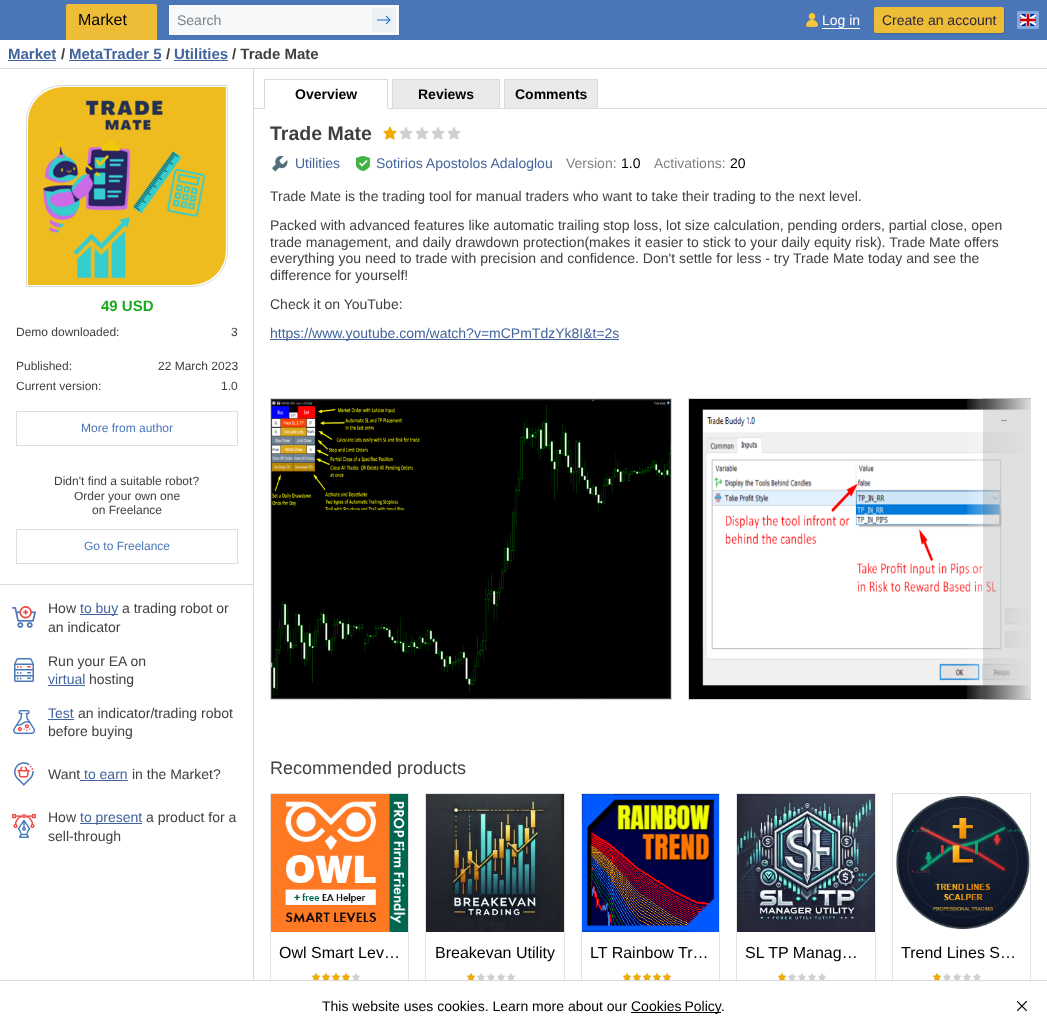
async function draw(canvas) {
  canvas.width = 1047;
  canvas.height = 1031;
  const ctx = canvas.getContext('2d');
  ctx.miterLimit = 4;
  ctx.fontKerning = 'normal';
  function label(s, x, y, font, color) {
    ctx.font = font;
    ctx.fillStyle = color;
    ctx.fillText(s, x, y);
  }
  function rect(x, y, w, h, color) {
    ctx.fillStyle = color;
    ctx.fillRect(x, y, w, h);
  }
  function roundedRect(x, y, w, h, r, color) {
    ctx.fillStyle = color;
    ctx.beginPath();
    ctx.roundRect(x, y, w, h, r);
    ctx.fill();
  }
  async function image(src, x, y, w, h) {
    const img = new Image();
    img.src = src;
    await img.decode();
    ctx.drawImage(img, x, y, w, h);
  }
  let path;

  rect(0, 0, 1047, 1031, '#fff');
  rect(0, 0, 1047, 40, '#4a76b8');
  ctx.fillStyle = '#edbd37';
  ctx.beginPath();
  ctx.roundRect(66, 4, 91, 36, [2, 2, 0, 0]);
  ctx.fill();
  label('Market', 78, 25, '16px Liberation Sans', '#000');
  rect(169, 5, 230, 30, '#f7f8fa');
  label('Search', 177, 25, '14px Liberation Sans', '#79828f');
  await image('assets/img1.png', 372, 8, 24, 24);
  rect(822, 28, 38, 1, '#fff');
  await image('assets/img2.png', 806, 13, 12, 14);
  label('Log in', 822, 25, '14px Liberation Sans', '#fff');
  ctx.fillStyle = '#47658f';
  path = new Path2D('M875 33C875 34 876 34 877 34H1003C1004 34 1005 33 1005 32V10C1005 9 1005 8 1004 8V24C1004 25 1006 33 1002 33Z');
  ctx.fill(path);
  roundedRect(874, 7, 130, 26, 2, '#edbd37');
  label('Create an account', 882, 25, '14px Liberation Sans', '#2a2540');
  await image('assets/img3.png', 1020, 14, 16, 12);
  ctx.strokeStyle = '#82a8dc';
  ctx.lineWidth = 3;
  ctx.strokeRect(1018.5, 12.5, 19, 15);
  rect(0, 68, 1047, 1, '#dadada');
  label('Market', 8, 59, 'bold 15px Liberation Sans', '#42639c');
  rect(8, 60, 48, 1, '#42639c');
  label('/', 61, 59, 'bold 15px Liberation Sans', '#404040');
  label('MetaTrader 5', 69, 59, 'bold 15px Liberation Sans', '#42639c');
  rect(69, 60, 92, 1, '#42639c');
  label('/', 166, 59, 'bold 15px Liberation Sans', '#404040');
  label('Utilities', 174, 59, 'bold 15px Liberation Sans', '#42639c');
  rect(174, 60, 54, 1, '#42639c');
  label('/ Trade Mate', 232, 59, 'bold 15px Liberation Sans', '#404040');
  ctx.beginPath();
  ctx.roundRect(26.5, 85.5, 201, 201, [35.5, 0, 35.5, 0]);
  ctx.strokeStyle = '#dadada';
  ctx.lineWidth = 1;
  ctx.stroke();
  await image('assets/img4.png', 28, 87, 198, 198);
  label('49 USD', 101, 311, 'bold 15px Liberation Sans', '#1ba921');
  label('Demo downloaded:', 16, 336, '12px Liberation Sans', '#404040');
  label('3', 231, 336, '12px Liberation Sans', '#404040');
  label('Published:', 16, 370, '12px Liberation Sans', '#404040');
  label('22 March 2023', 158, 370, '12px Liberation Sans', '#404040');
  label('Current version:', 16, 390, '12px Liberation Sans', '#404040');
  label('1.0', 221, 390, '12px Liberation Sans', '#404040');
  ctx.strokeStyle = '#dedede';
  ctx.strokeRect(16.5, 411.5, 221, 34);
  label('More from author', 81, 432, '12px Liberation Sans', '#4a76b8');
  label('Didn\'t find a suitable robot?', 54, 485, '12px Liberation Sans', '#404040');
  label('Order your own one', 74, 500, '12px Liberation Sans', '#404040');
  label('on Freelance', 92, 514, '12px Liberation Sans', '#404040');
  ctx.strokeRect(16.5, 529.5, 221, 34);
  label('Go to Freelance', 84, 550, '12px Liberation Sans', '#4a76b8');
  rect(253, 69, 1, 911, '#dadada');
  rect(0, 584, 254, 1, '#dadada');
  await image('assets/img5.png', 12, 606, 24, 22);
  label('How', 48, 613, '14px Liberation Sans', '#404040');
  rect(80, 614, 38, 1, '#42639c');
  label('to buy', 80, 613, '14px Liberation Sans', '#42639c');
  label('а trading robot or', 122, 613, '14px Liberation Sans', '#404040');
  label('an indicator', 48, 632, '14px Liberation Sans', '#404040');
  await image('assets/img6.png', 14, 658, 20, 24);
  label('Run your EA on', 48, 666, '14px Liberation Sans', '#404040');
  label('virtual', 48, 684, '14px Liberation Sans', '#42639c');
  rect(48, 685, 37, 1, '#42639c');
  label('hosting', 89, 684, '14px Liberation Sans', '#404040');
  await image('assets/img7.png', 13, 710, 23, 24);
  label('Test', 48, 718, '14px Liberation Sans', '#42639c');
  rect(48, 719, 26, 1, '#42639c');
  label('аn indicator/trading robot', 78, 718, '14px Liberation Sans', '#404040');
  label('before buying', 48, 736, '14px Liberation Sans', '#404040');
  await image('assets/img8.png', 14, 762, 20, 24);
  label('Want', 48, 779, '14px Liberation Sans', '#404040');
  label('to earn', 84, 779, '14px Liberation Sans', '#42639c');
  rect(80, 780, 48, 1, '#42639c');
  label('in the Market?', 132, 779, '14px Liberation Sans', '#404040');
  await image('assets/img9.png', 12, 814, 24, 24);
  label('How', 48, 822, '14px Liberation Sans', '#404040');
  rect(80, 823, 62, 1, '#42639c');
  label('to present', 80, 822, '14px Liberation Sans', '#42639c');
  label('a product for a', 146, 822, '14px Liberation Sans', '#404040');
  label('sell-through', 48, 841, '14px Liberation Sans', '#404040');
  rect(264, 79, 124, 1, '#dadada');
  ctx.fillStyle = '#eaeaea';
  ctx.beginPath();
  ctx.rect(392.5, 79.5, 107, 29);
  ctx.fill();
  ctx.strokeStyle = '#dadada';
  ctx.stroke();
  ctx.beginPath();
  ctx.rect(504.5, 79.5, 93, 29);
  ctx.fill();
  ctx.stroke();
  rect(254, 108, 793, 1, '#dadada');
  rect(387, 79, 1, 30, '#dadada');
  rect(264, 108, 124, 1, '#fff');
  rect(264, 79, 1, 30, '#dadada');
  label('Overview', 295, 99, 'bold 14px Liberation Sans', '#000');
  label('Reviews', 418, 99, 'bold 14px Liberation Sans', '#000');
  label('Comments', 515, 99, 'bold 14px Liberation Sans', '#000');
  label('Trade Mate', 270, 140, 'bold 19.5px Liberation Sans', '#404040');
  await image('assets/img10.png', 383, 127, 78, 13);
  await image('assets/img11.png', 383, 126, 14, 14);
  await image('assets/img12.png', 272, 156, 16, 16);
  label('Utilities', 295, 168, '14px Liberation Sans', '#42639c');
  await image('assets/img13.png', 356, 156, 14, 15);
  label('Sotirios Apostolos Adaloglou', 376, 168, '14px Liberation Sans', '#42639c');
  label('Version:', 566, 168, '14px Liberation Sans', '#828282');
  label('1.0', 621, 168, '14px Liberation Sans', '#000');
  label('Activations:', 654, 168, '14px Liberation Sans', '#828282');
  label('20', 730, 168, '14px Liberation Sans', '#000');
  label('Trade Mate is the trading tool for manual traders who want to take their trading to the next level.', 270, 201, '14px Liberation Sans', '#404040');
  label('Packed with advanced features like automatic trailing stop loss, lot size calculation, pending orders, partial close, open', 270, 230, '14px Liberation Sans', '#404040');
  label('trade management, and daily drawdown protection(makes it easier to stick to your daily equity risk). Trade Mate offers', 270, 247, '14px Liberation Sans', '#404040');
  label('everything you need to trade with precision and confidence. Don\'t settle for less - try Trade Mate today and see the', 270, 263, '14px Liberation Sans', '#404040');
  label('difference for yourself!', 270, 280, '14px Liberation Sans', '#404040');
  label('Check it on YouTube:', 270, 309, '14px Liberation Sans', '#404040');
  rect(270, 339, 349, 1, '#42639c');
  label('https://www.youtube.com/watch?v=mCPmTdzYk8I&t=2s', 270, 338, '14px Liberation Sans', '#42639c');
  ctx.strokeStyle = '#d6d6d6';
  ctx.strokeRect(270.5, 398.5, 401, 301);
  await image('assets/img14.png', 271, 399, 400, 300);
  ctx.save();
  ctx.beginPath();
  ctx.rect(270, 398, 761, 302);
  ctx.clip();
  ctx.strokeRect(688.5, 398.5, 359, 301);
  ctx.restore();
  await image('assets/img15.png', 689, 399, 342, 300);
  rect(983, 398, 48, 302, '#0000001f');
  label('Recommended products', 270, 774, '18px Liberation Sans', '#404040');
  await image('assets/img16.png', 271, 794, 137, 138);
  ctx.strokeStyle = '#e3e3e3';
  ctx.strokeRect(270.5, 793.5, 138, 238);
  await image('assets/img17.png', 284, 794, 123, 137);
  label('Owl Smart Lev…', 279, 958, '16px Liberation Sans', '#000');
  await image('assets/img18.png', 312, 973, 48, 7);
  await image('assets/img19.png', 312, 973, 38, 7);
  await image('assets/img20.png', 426, 794, 138, 138);
  ctx.strokeRect(425.5, 793.5, 139, 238);
  await image('assets/img21.png', 447, 794, 115, 137);
  label('Breakevan Utility', 435, 958, '16px Liberation Sans', '#000');
  await image('assets/img18.png', 467, 973, 48, 7);
  await image('assets/img22.png', 467, 973, 8, 7);
  await image('assets/img23.png', 582, 931, 137, 1);
  ctx.strokeRect(581.5, 793.5, 138, 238);
  await image('assets/img24.png', 582, 794, 137, 137);
  label('LT Rainbow Tr…', 590, 958, '16px Liberation Sans', '#000');
  await image('assets/img18.png', 623, 973, 48, 7);
  await image('assets/img25.png', 623, 973, 48, 7);
  await image('assets/img26.png', 737, 922, 138, 10);
  ctx.strokeRect(736.5, 793.5, 139, 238);
  await image('assets/img27.png', 737, 794, 138, 128);
  label('SL TP Manag…', 745, 958, '16px Liberation Sans', '#000');
  await image('assets/img18.png', 778, 973, 48, 7);
  await image('assets/img22.png', 778, 973, 8, 7);
  ctx.strokeRect(892.5, 793.5, 138, 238);
  await image('assets/img28.png', 895, 795, 135, 135);
  label('Trend Lines S…', 901, 958, '16px Liberation Sans', '#000');
  await image('assets/img18.png', 933, 973, 48, 7);
  await image('assets/img22.png', 933, 973, 8, 7);
  rect(270, 981, 761, 50, '#fff');
  rect(0, 980, 1047, 1, '#dadada');
  label('This website uses cookies. Learn more about our', 322, 1011, '14px Liberation Sans', '#000');
  rect(631, 1012, 90, 1, '#000');
  ctx.wordSpacing = '-1px';
  label('Cookies Policy', 631, 1011, '14px Liberation Sans', '#000');
  ctx.wordSpacing = '0px';
  label('.', 721, 1011, '14px Liberation Sans', '#000');
  await image('assets/img29.png', 1017, 1001, 10, 10);
}

draw(document.querySelector('canvas'));
